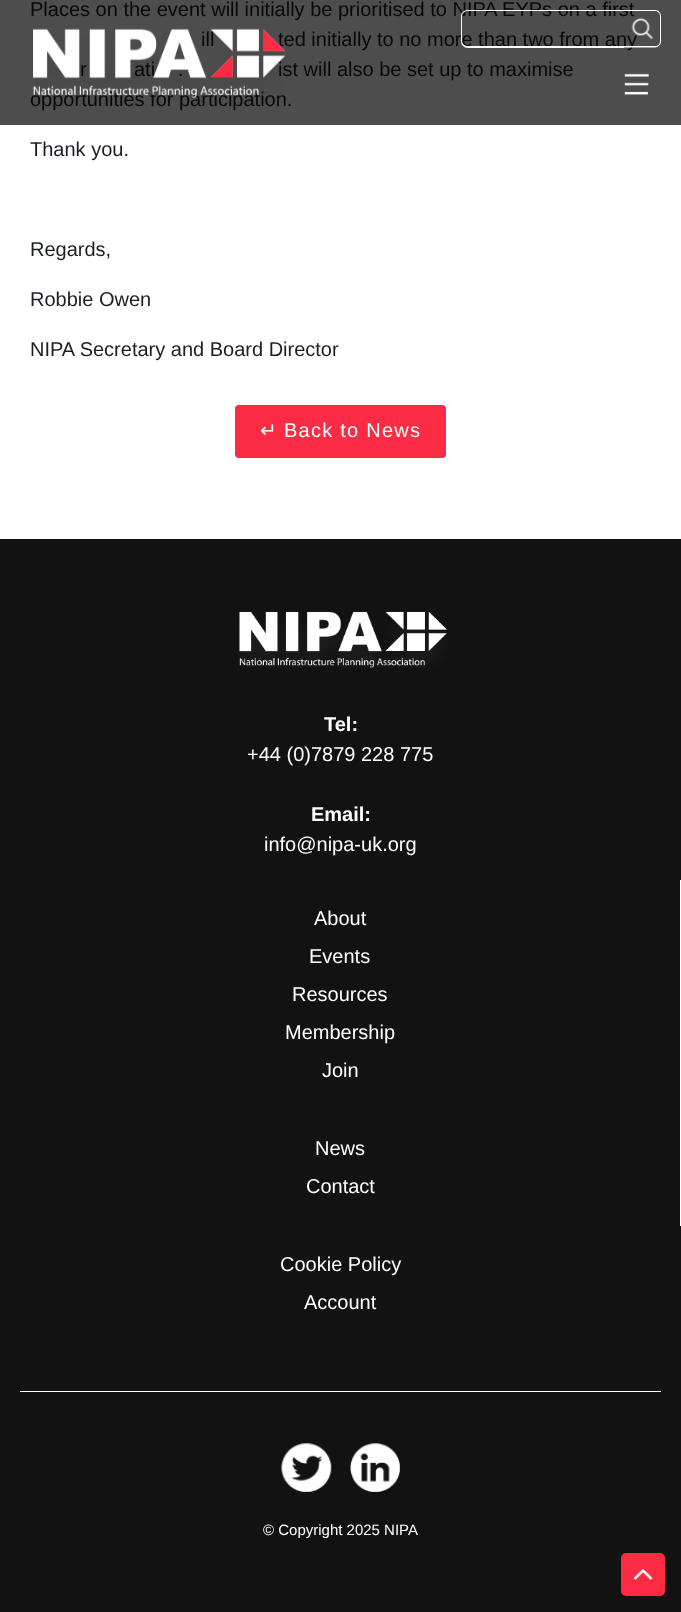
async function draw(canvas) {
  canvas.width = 681;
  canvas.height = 1612;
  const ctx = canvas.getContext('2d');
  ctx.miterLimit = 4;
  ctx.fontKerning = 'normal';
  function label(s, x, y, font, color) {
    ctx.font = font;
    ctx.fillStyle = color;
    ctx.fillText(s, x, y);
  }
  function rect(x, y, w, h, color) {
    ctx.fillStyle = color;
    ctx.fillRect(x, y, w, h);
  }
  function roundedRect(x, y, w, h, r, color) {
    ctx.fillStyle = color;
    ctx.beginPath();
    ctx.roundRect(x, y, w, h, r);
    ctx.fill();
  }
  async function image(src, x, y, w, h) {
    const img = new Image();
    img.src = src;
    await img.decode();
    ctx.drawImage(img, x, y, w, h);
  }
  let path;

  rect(0, 0, 681, 1612, '#fff');
  rect(0, 0, 681, 125, '#4d4d4d');
  label('Places on the event will initially be prioritised to NIPA EYPs on a first', 30, 16, '20px Liberation Sans', '#08090b');
  label('ill', 201, 46, '20px Liberation Sans', '#08090b');
  label('ted initially to no more than two from any', 278, 46, '20px Liberation Sans', '#08090b');
  label('r', 80, 76, '20px Liberation Sans', '#08090b');
  label('ati', 134, 76, '20px Liberation Sans', '#08090b');
  label('.', 178, 76, '20px Liberation Sans', '#08090b');
  label('ist will also be set up to maximise', 278, 76, '20px Liberation Sans', '#08090b');
  label('opportunities for participation.', 30, 106, '20px Liberation Sans', '#08090b');
  label('Thank you.', 30, 156, '20px Liberation Sans', '#1b1e25');
  label('Regards,', 30, 256, '20px Liberation Sans', '#1b1e25');
  label('Robbie Owen', 30, 306, '20px Liberation Sans', '#1b1e25');
  label('NIPA Secretary and Board Director', 30, 356, '20px Liberation Sans', '#1b1e25');
  roundedRect(235, 405, 211, 53, 4, '#fb2b43');
  ctx.letterSpacing = '1.25px';
  label('↵', 260, 437, '20px DejaVu Sans', '#fff');
  label('Back to News', 284, 437, '20px Liberation Sans', '#fff');
  rect(0, 539, 681, 1073, '#121212');
  await image('assets/img1.png', 238, 611, 209, 57);
  ctx.letterSpacing = '0px';
  label('Tel:', 324, 731, 'bold 20px Liberation Sans', '#fff');
  label('+44 (0)7879 228 775', 247, 761, '20px Liberation Sans', '#fff');
  label('Email:', 311, 821, 'bold 20px Liberation Sans', '#fff');
  label('info@nipa-uk.org', 264, 851, '20px Liberation Sans', '#fff');
  rect(680, 880, 1, 346, '#fff');
  label('About', 314, 925, '20px Liberation Sans', '#fff');
  label('Events', 309, 963, '20px Liberation Sans', '#fff');
  label('Resources', 292, 1001, '20px Liberation Sans', '#fff');
  label('Membership', 285, 1039, '20px Liberation Sans', '#fff');
  label('Join', 322, 1077, '20px Liberation Sans', '#fff');
  label('News', 315, 1155, '20px Liberation Sans', '#fff');
  label('Contact', 306, 1193, '20px Liberation Sans', '#fff');
  label('Cookie Policy', 280, 1271, '20px Liberation Sans', '#fff');
  label('Account', 304, 1309, '20px Liberation Sans', '#fff');
  rect(20, 1391, 641, 1, '#fff');
  await image('assets/img2.png', 281, 1443, 51, 49);
  await image('assets/img3.png', 350, 1443, 50, 49);
  label('© Copyright 2025 NIPA', 263, 1535, '15px Liberation Sans', '#fff');
  roundedRect(621, 1553, 44, 43, 5, '#fb2b43');
  await image('assets/img4.png', 633, 1569, 20, 11);
  await image('assets/img5.png', 33, 28, 252, 70);
  ctx.fillStyle = '#fff';
  path = new Path2D('M468 10H624V48H468C464 48 461 45 461 41V16C461 13 464 10 468 10ZM468 11H624V46H468C465 46 462 44 462 41V16C462 13 465 11 468 11Z');
  ctx.fill(path, 'evenodd');
  await image('assets/img6.png', 631, 18, 23, 22);
  path = new Path2D('M624 10H655C658.5 10 661 13 661 16V41C661 44.5 658.5 47.5 655 47.5H624ZM624 11H655C658 11 660 13.5 660 16V41C660 44 658 46 655 46H624Z');
  ctx.fill(path, 'evenodd');
  await image('assets/img7.png', 624, 73, 25, 22);
}

draw(document.querySelector('canvas'));
